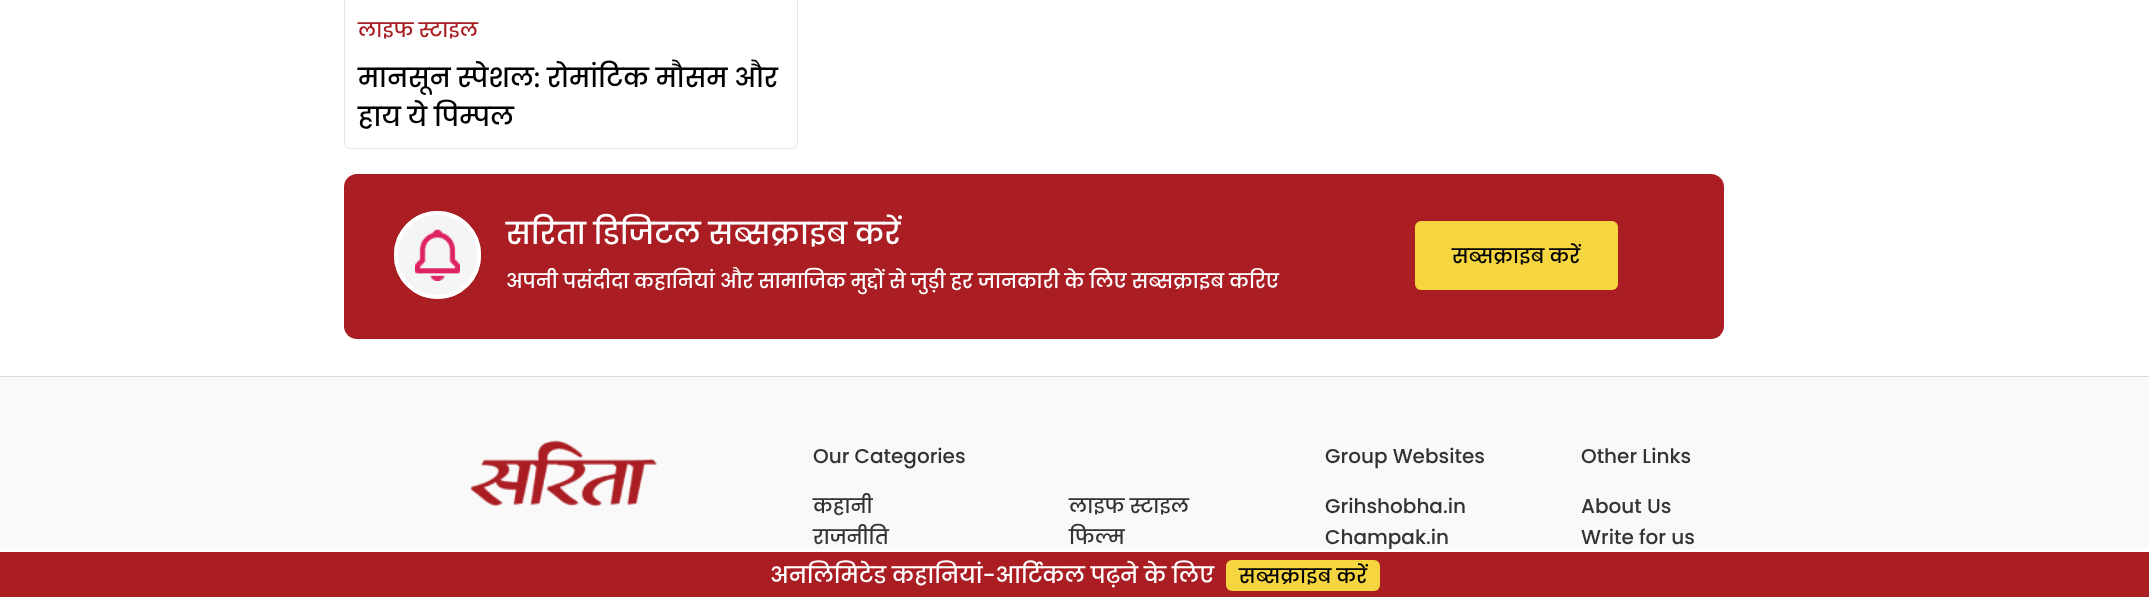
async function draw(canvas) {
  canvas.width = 2149;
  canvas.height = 597;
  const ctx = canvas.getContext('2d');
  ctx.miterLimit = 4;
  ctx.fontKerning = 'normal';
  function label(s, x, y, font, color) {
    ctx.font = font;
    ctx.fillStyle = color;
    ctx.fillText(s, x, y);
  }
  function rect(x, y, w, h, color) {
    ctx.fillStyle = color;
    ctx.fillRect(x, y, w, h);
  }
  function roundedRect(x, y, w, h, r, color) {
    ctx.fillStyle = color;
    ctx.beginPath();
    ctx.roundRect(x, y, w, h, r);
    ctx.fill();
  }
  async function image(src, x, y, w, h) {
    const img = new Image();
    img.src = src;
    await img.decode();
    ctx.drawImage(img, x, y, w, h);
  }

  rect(0, 0, 2149, 597, '#fff');
  ctx.beginPath();
  ctx.roundRect(344.5, -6.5, 453, 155, 5.5);
  ctx.strokeStyle = '#e6e6e6';
  ctx.stroke();
  label('लाइफ स्टाइल', 358, 37, '500 20px Poppins', '#aa1d23');
  label('मानसून स्पेशल: रोमांटिक मौसम और', 358, 87, '500 26.25px Poppins', '#000');
  label('हाय ये पिम्पल', 358, 126, '500 26.25px Poppins', '#000');
  roundedRect(344, 174, 1380, 165, 13, '#aa1d23');
  roundedRect(394, 211, 87, 88, 43.5, '#f5f5f5');
  await image('assets/img1.png', 415, 229, 45, 52);
  ctx.beginPath();
  ctx.roundRect(396, 213, 83, 84, 41.5);
  ctx.strokeStyle = '#fff';
  ctx.lineWidth = 4;
  ctx.stroke();
  label('सरिता डिजिटल सब्सक्राइब करें', 506, 244, '500 30px Poppins', '#fff');
  roundedRect(1415, 221, 203, 69, 6, '#f5d540');
  label('सब्सक्राइब करें', 1452, 263, '500 20px Poppins', '#000');
  label('अपनी पसंदीदा कहानियां और सामाजिक मुद्दों से जुड़ी हर जानकारी के लिए सब्सक्राइब करिए', 506, 288, '500 20px Poppins', '#fff');
  rect(0, 377, 2149, 172, '#f9f9f9');
  rect(0, 376, 2149, 1, '#dbdbdb');
  await image('assets/img2.png', 470, 440, 188, 66);
  label('Our Categories', 813, 463, '500 20px Poppins', '#333');
  label('कहानी', 813, 513, '500 20px Poppins', '#333');
  label('राजनीति', 813, 544, '500 20px Poppins', '#333');
  label('लाइफ स्टाइल', 1069, 513, '500 20px Poppins', '#333');
  label('फिल्म', 1069, 544, '500 20px Poppins', '#333');
  label('Group Websites', 1325, 463, '500 20px Poppins', '#333');
  label('Grihshobha.in', 1325, 513, '500 20px Poppins', '#333');
  label('Champak.in', 1325, 544, '500 20px Poppins', '#333');
  label('Other Links', 1581, 463, '500 20px Poppins', '#333');
  label('About Us', 1581, 513, '500 20px Poppins', '#333');
  label('Write for us', 1581, 544, '500 20px Poppins', '#333');
  rect(0, 552, 2149, 45, '#aa1d23');
  rect(1389, 549, 3, 1, '#fff');
  label('अनलिमिटेड कहानियां-आर्टिकल पढ़ने के लिए', 770, 583, '500 22.5px Poppins', '#fff');
  roundedRect(1226, 560, 154, 31, 6, '#f5d540');
  label('सब्सक्राइब करें', 1239, 583, '500 20px Poppins', '#000');
}

draw(document.querySelector('canvas'));
